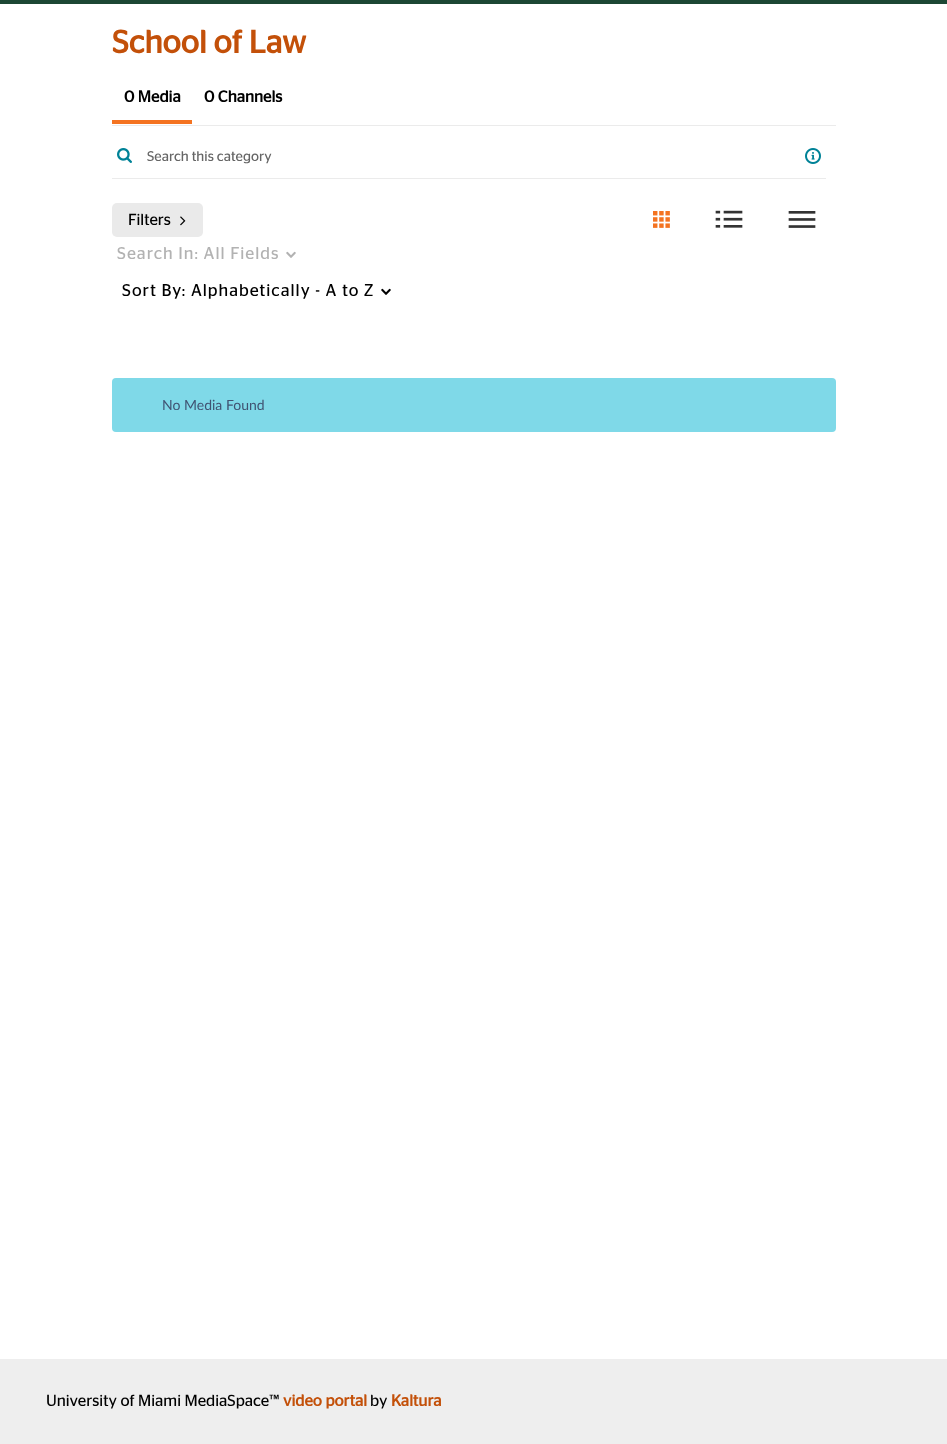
async function draw(canvas) {
  canvas.width = 947;
  canvas.height = 1444;
  const ctx = canvas.getContext('2d');
  ctx.miterLimit = 4;
  ctx.fontKerning = 'normal';
  function label(s, x, y, font, color) {
    ctx.font = font;
    ctx.fillStyle = color;
    ctx.fillText(s, x, y);
  }
  function rect(x, y, w, h, color) {
    ctx.fillStyle = color;
    ctx.fillRect(x, y, w, h);
  }
  function roundedRect(x, y, w, h, r, color) {
    ctx.fillStyle = color;
    ctx.beginPath();
    ctx.roundRect(x, y, w, h, r);
    ctx.fill();
  }
  async function image(src, x, y, w, h) {
    const img = new Image();
    img.src = src;
    await img.decode();
    ctx.drawImage(img, x, y, w, h);
  }

  rect(0, 0, 947, 1444, '#fff');
  rect(0, 0, 947, 4, '#1c4734');
  label('School of Law', 112, 53, 'bold 32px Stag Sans', '#c35009');
  rect(112, 125, 724, 1, '#ebebeb');
  rect(112, 120, 80, 4, '#f47321');
  label('0 Media', 124, 102, 'bold 16px Stag Sans', '#000');
  label('0 Channels', 204, 102, 'bold 16px Stag Sans', '#000');
  rect(112, 178, 714, 1, '#ebebeb');
  await image('assets/img1.png', 117, 148, 15, 15);
  label('Search this category', 147, 161, '14px Stag Sans', '#666');
  await image('assets/img2.png', 805, 148, 16, 16);
  roundedRect(112, 203, 91, 34, 5, '#eaeaea');
  label('Filters', 128, 225, '16px Stag Sans', '#000');
  await image('assets/img3.png', 180, 216, 6, 10);
  ctx.letterSpacing = '1px';
  label('Search In: All Fields', 117, 259, '17px Stag Sans', '#b2b2b2');
  await image('assets/img4.png', 286, 251, 10, 7);
  label('Sort By: Alphabetically - A to Z', 122, 296, '17px Stag Sans', '#000');
  await image('assets/img5.png', 381, 288, 10, 7);
  await image('assets/img6.png', 653, 211, 17, 17);
  await image('assets/img7.png', 715, 210, 28, 18);
  await image('assets/img8.png', 788, 211, 28, 17);
  roundedRect(112, 378, 724, 54, 4, '#7fd9e8');
  ctx.letterSpacing = '0px';
  label('No Media Found', 162, 410, '14px Lato', '#405372');
  rect(0, 1359, 947, 85, '#eee');
  label('University of Miami MediaSpace™', 46, 1406, '16px Stag Sans', '#000');
  label('video portal', 283, 1406, 'bold 16px Stag Sans', '#c35009');
  label('by', 370, 1406, '16px Stag Sans', '#000');
  label('Kaltura', 391, 1406, 'bold 16px Stag Sans', '#c35009');
}

draw(document.querySelector('canvas'));
